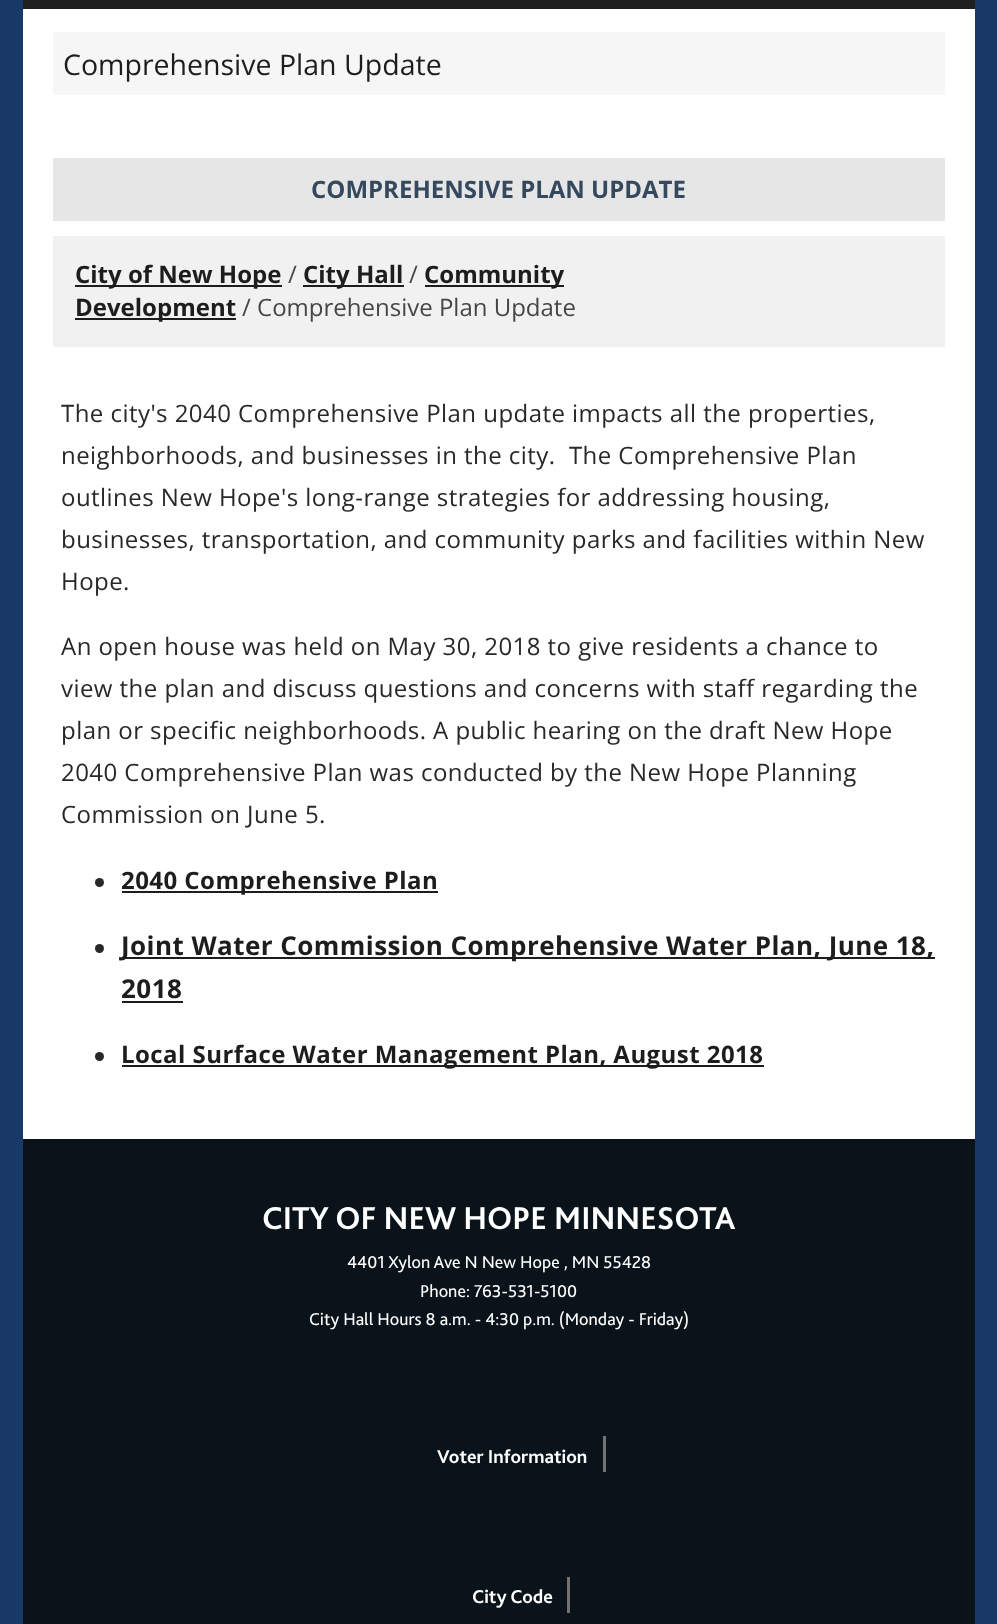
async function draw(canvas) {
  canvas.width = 997;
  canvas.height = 1624;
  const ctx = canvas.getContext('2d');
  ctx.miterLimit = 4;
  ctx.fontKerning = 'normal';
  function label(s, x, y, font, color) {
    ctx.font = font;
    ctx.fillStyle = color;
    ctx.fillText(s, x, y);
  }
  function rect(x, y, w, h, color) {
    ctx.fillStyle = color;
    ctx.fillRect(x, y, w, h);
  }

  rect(0, 0, 997, 1624, '#fff');
  ctx.strokeStyle = '#193968';
  ctx.lineWidth = 23;
  ctx.strokeRect(11.5, -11.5, 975, 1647);
  rect(23, 0, 952, 9, '#1f1f1f');
  rect(53, 32, 892, 63, '#f6f6f6');
  label('Comprehensive Plan Update', 63, 75, '28.5px Open Sans', '#1d1d1d');
  rect(53, 158, 892, 63, '#e6e6e6');
  label('COMPREHENSIVE PLAN UPDATE', 311, 198, 'bold 24px Open Sans', '#34495e');
  rect(53, 236, 892, 111, '#f1f1f1');
  rect(75, 285, 207, 2, '#1d1d1d');
  label('City of New Hope', 75, 283, 'bold 24px Open Sans', '#1d1d1d');
  label('/', 288, 283, '24px Open Sans', '#464646');
  rect(303, 285, 101, 2, '#1d1d1d');
  label('City Hall', 303, 283, 'bold 24px Open Sans', '#1d1d1d');
  label('/', 409, 283, '24px Open Sans', '#464646');
  rect(425, 285, 139, 2, '#1d1d1d');
  label('Community', 424, 283, 'bold 24px Open Sans', '#1d1d1d');
  rect(75, 318, 161, 2, '#1d1d1d');
  label('Development', 75, 316, 'bold 24px Open Sans', '#1d1d1d');
  label('/ Comprehensive Plan Update', 242, 316, '24px Open Sans', '#464646');
  ctx.letterSpacing = '0.45px';
  label('The city\'s 2040 Comprehensive Plan update impacts all the properties,', 61, 422, '24px Open Sans', '#282828');
  label('neighborhoods, and businesses in the city.  The Comprehensive Plan', 61, 464, '24px Open Sans', '#282828');
  label('outlines New Hope\'s long-range strategies for addressing housing,', 61, 506, '24px Open Sans', '#282828');
  label('businesses, transportation, and community parks and facilities within New', 61, 548, '24px Open Sans', '#282828');
  label('Hope.', 61, 590, '24px Open Sans', '#282828');
  label('An open house was held on May 30, 2018 to give residents a chance to', 61, 655, '24px Open Sans', '#282828');
  label('view the plan and discuss questions and concerns with staff regarding the', 61, 697, '24px Open Sans', '#282828');
  label('plan or specific neighborhoods. A public hearing on the draft New Hope', 61, 739, '24px Open Sans', '#282828');
  label('2040 Comprehensive Plan was conducted by the New Hope Planning', 61, 781, '24px Open Sans', '#282828');
  label('Commission on June 5.', 61, 823, '24px Open Sans', '#282828');
  ctx.beginPath();
  ctx.arc(99.5, 882.5, 4.5, 0, 2 * Math.PI);
  ctx.fill();
  rect(122, 891, 316, 2, '#1d1d1d');
  label('2040 Comprehensive Plan', 121, 889, 'bold 24px Open Sans', '#1d1d1d');
  ctx.fillStyle = '#282828';
  ctx.beginPath();
  ctx.arc(99.5, 948.5, 4.5, 0, 2 * Math.PI);
  ctx.fill();
  rect(122, 957, 813, 2, '#1d1d1d');
  label('Joint Water Commission Comprehensive Water Plan, June 18,', 121, 955, 'bold 26px Open Sans', '#1d1d1d');
  label('2018', 121, 998, 'bold 26px Open Sans', '#1d1d1d');
  rect(122, 1001, 61, 2, '#1d1d1d');
  ctx.fillStyle = '#282828';
  ctx.beginPath();
  ctx.arc(99.5, 1056.5, 4.5, 0, 2 * Math.PI);
  ctx.fill();
  rect(122, 1065, 642, 2, '#1d1d1d');
  label('Local Surface Water Management Plan, August 2018', 121, 1063, 'bold 24px Open Sans', '#1d1d1d');
  rect(23, 1139, 952, 485, '#0a131a');
  ctx.letterSpacing = '0px';
  label('CITY OF NEW HOPE MINNESOTA', 262, 1229, 'bold 33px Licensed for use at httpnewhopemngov', '#fff');
  label('4401', 347, 1268, '18px Licensed for use at httpnewhopemngov', '#fff');
  label('Xylon Ave N New Hope , MN 55428', 388, 1268, '18px Licensed for use at httpnewhopemngov', '#fff');
  label('Phone: 763-531-5100', 420, 1297, '18px Licensed for use at httpnewhopemngov', '#fff');
  label('City Hall Hours 8 a.m. - 4:30 p.m. (Monday - Friday)', 309, 1325, '18px Licensed for use at httpnewhopemngov', '#fff');
  label('Voter Information', 437, 1463, 'bold 19.5px Licensed for use at httpnewhopemngov', '#fff');
  rect(603, 1436, 3, 36, '#757272');
  label('City Code', 472, 1603, 'bold 19.5px Licensed for use at httpnewhopemngov', '#fff');
  rect(567, 1577, 3, 36, '#757272');
}

draw(document.querySelector('canvas'));
